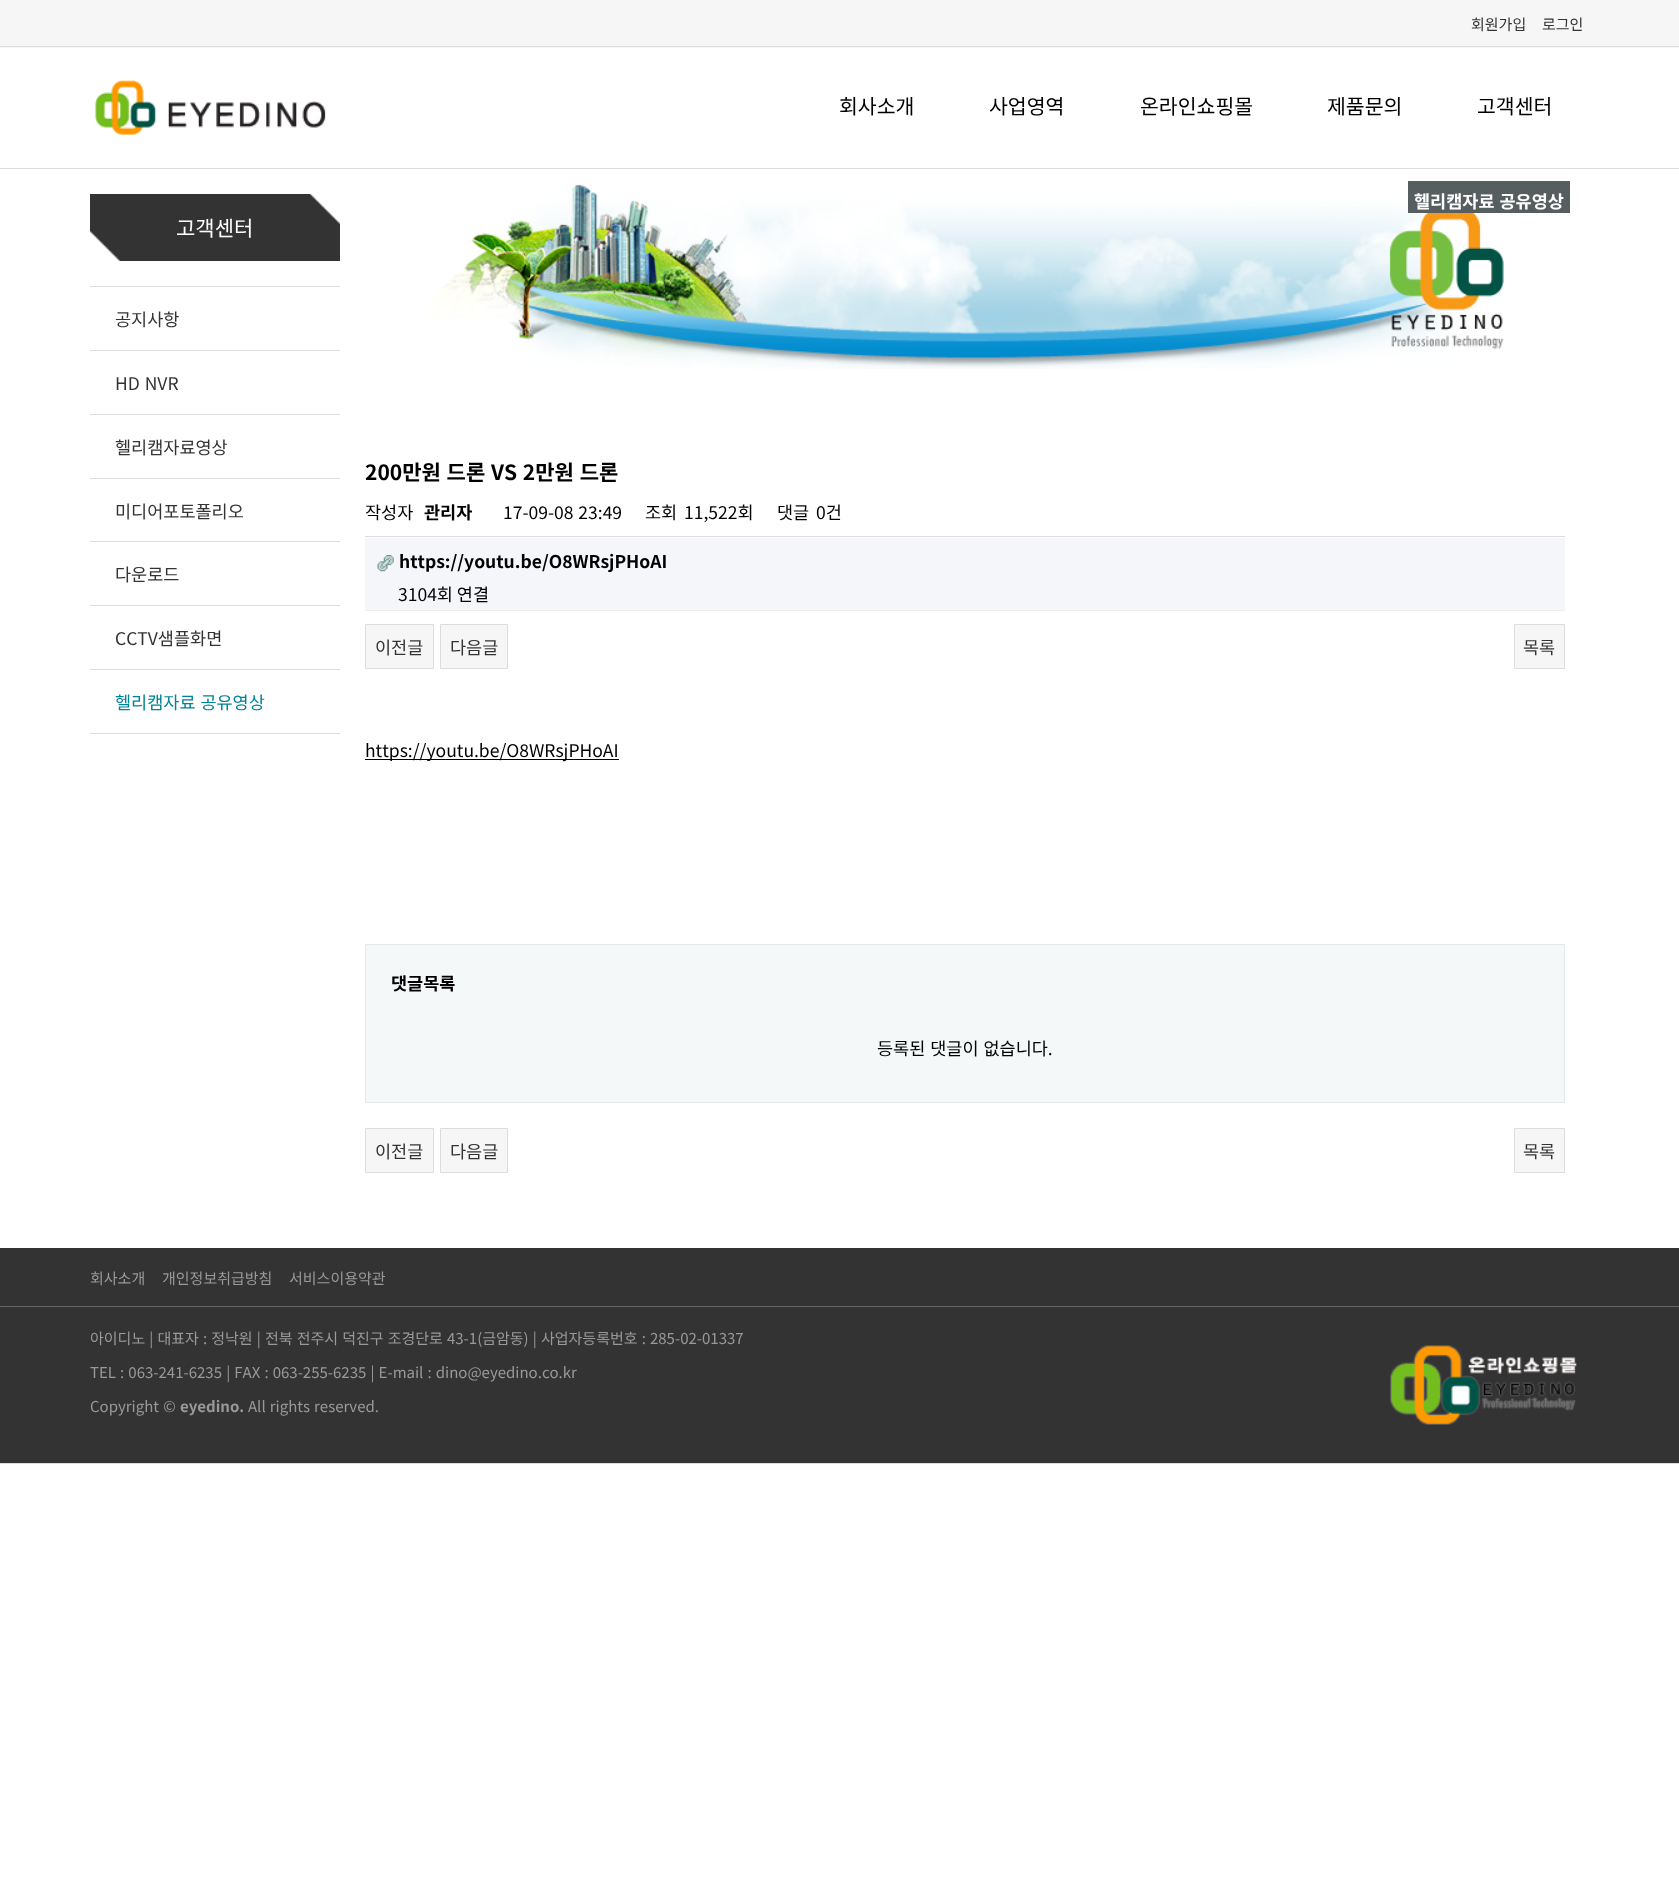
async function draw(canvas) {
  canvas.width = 1679;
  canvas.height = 1902;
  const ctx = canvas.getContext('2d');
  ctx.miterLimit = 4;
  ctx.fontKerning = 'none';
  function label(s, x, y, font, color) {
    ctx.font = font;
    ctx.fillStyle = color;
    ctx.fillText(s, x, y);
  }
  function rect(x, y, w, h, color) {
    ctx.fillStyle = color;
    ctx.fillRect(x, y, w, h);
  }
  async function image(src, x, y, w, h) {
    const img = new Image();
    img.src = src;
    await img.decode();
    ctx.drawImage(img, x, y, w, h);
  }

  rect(0, 0, 1679, 1902, '#fff');
  rect(0, 168, 1679, 1, '#ddd');
  rect(0, 0, 1679, 48, '#f6f6f6');
  rect(0, 46, 1679, 1, '#ddd');
  label('회원가입', 1471, 30, '15px Noto Sans KR', '#333');
  label('로그인', 1542, 30, '15px Noto Sans KR', '#333');
  await image('assets/img1.png', 94, 80, 232, 55);
  label('회사소개', 839, 114, '20.5px Noto Sans KR', '#000');
  label('사업영역', 989, 114, '20.5px Noto Sans KR', '#000');
  label('온라인쇼핑몰', 1140, 114, '20.5px Noto Sans KR', '#000');
  label('제품문의', 1327, 114, '20.5px Noto Sans KR', '#000');
  label('고객센터', 1477, 114, '20.5px Noto Sans KR', '#000');
  rect(90, 733, 250, 1, '#ddd');
  rect(90, 194, 250, 67, '#333');
  await image('assets/img2.png', 310, 194, 30, 30);
  label('고객센터', 176, 236, '21px Noto Sans KR', '#fff');
  await image('assets/img3.png', 90, 231, 30, 30);
  rect(90, 286, 250, 1, '#ddd');
  label('공지사항', 115, 326, '17.5px Noto Sans KR', '#333');
  rect(90, 350, 250, 1, '#ddd');
  ctx.wordSpacing = '1px';
  label('HD NVR', 115, 390, '17.5px Noto Sans KR', '#333');
  rect(90, 414, 250, 1, '#ddd');
  ctx.wordSpacing = '0px';
  label('헬리캠자료영상', 115, 454, '17.5px Noto Sans KR', '#333');
  rect(90, 478, 250, 1, '#ddd');
  label('미디어포토폴리오', 115, 518, '17.5px Noto Sans KR', '#333');
  rect(90, 541, 250, 1, '#ddd');
  label('다운로드', 115, 581, '17.5px Noto Sans KR', '#333');
  rect(90, 605, 250, 1, '#ddd');
  label('CCTV샘플화면', 115, 645, '17.5px Noto Sans KR', '#333');
  rect(90, 669, 250, 1, '#ddd');
  ctx.wordSpacing = '1px';
  label('헬리캠자료 공유영상', 115, 709, '17.5px Noto Sans KR', '#008299');
  await image('assets/img4.png', 428, 184, 1076, 185);
  rect(1408, 181, 162, 32, '#565e60');
  label('헬리캠자료 공유영상', 1414, 208, 'bold 17.5px Noto Sans KR', '#fff');
  label('200만원 드론 VS 2만원 드론', 365, 480, 'bold 21px Noto Sans KR', '#000');
  rect(365, 536, 1200, 1, '#ddd');
  ctx.wordSpacing = '0px';
  label('작성자', 365, 519, '17.5px Noto Sans KR', '#000');
  label('관리자', 424, 519, 'bold 17.5px Noto Sans KR', '#000');
  ctx.wordSpacing = '1px';
  label('17-09-08 23:49', 503, 519, '17.5px Noto Sans KR', '#000');
  ctx.wordSpacing = '0px';
  label('조회', 645, 519, '17.5px Noto Sans KR', '#000');
  label('11,522회', 684, 519, '17.5px Noto Sans KR', '#000');
  label('댓글', 777, 519, '17.5px Noto Sans KR', '#000');
  label('0건', 816, 519, '17.5px Noto Sans KR', '#000');
  rect(365, 538, 1200, 72, '#f5f6fa');
  rect(365, 610, 1200, 1, '#eee');
  await image('assets/img5.png', 377, 555, 17, 17);
  label('https://youtu.be/O8WRsjPHoAI', 399, 568, 'bold 17.5px Noto Sans KR', '#000');
  label('3104회 연결', 398, 601, '17.5px Noto Sans KR', '#000');
  ctx.fillStyle = '#f6f6f6';
  ctx.beginPath();
  ctx.rect(365.5, 624.5, 68, 44);
  ctx.fill();
  ctx.strokeStyle = '#ddd';
  ctx.stroke();
  label('이전글', 375, 654, '17.5px Noto Sans KR', '#333');
  ctx.fillStyle = '#f6f6f6';
  ctx.beginPath();
  ctx.rect(440.5, 624.5, 67, 44);
  ctx.fill();
  ctx.stroke();
  label('다음글', 450, 654, '17.5px Noto Sans KR', '#333');
  ctx.fillStyle = '#f6f6f6';
  ctx.beginPath();
  ctx.rect(1514.5, 624.5, 50, 44);
  ctx.fill();
  ctx.stroke();
  label('목록', 1523, 654, '17.5px Noto Sans KR', '#333');
  rect(365, 759, 254, 1, '#000');
  label('https://youtu.be/O8WRsjPHoAI', 365, 757, '17.5px Noto Sans KR', '#000');
  ctx.fillStyle = '#f5f8f9';
  ctx.beginPath();
  ctx.rect(365.5, 944.5, 1199, 158);
  ctx.fill();
  ctx.strokeStyle = '#e5e8ec';
  ctx.stroke();
  label('댓글목록', 391, 990, 'bold 17.5px Noto Sans KR', '#000');
  ctx.wordSpacing = '1px';
  label('등록된 댓글이 없습니다.', 877, 1055, '17.5px Noto Sans KR', '#000');
  ctx.fillStyle = '#f6f6f6';
  ctx.beginPath();
  ctx.rect(365.5, 1128.5, 68, 44);
  ctx.fill();
  ctx.strokeStyle = '#ddd';
  ctx.stroke();
  ctx.wordSpacing = '0px';
  label('이전글', 375, 1158, '17.5px Noto Sans KR', '#333');
  ctx.fillStyle = '#f6f6f6';
  ctx.beginPath();
  ctx.rect(440.5, 1128.5, 67, 44);
  ctx.fill();
  ctx.stroke();
  label('다음글', 450, 1158, '17.5px Noto Sans KR', '#333');
  ctx.fillStyle = '#f6f6f6';
  ctx.beginPath();
  ctx.rect(1514.5, 1128.5, 50, 44);
  ctx.fill();
  ctx.stroke();
  label('목록', 1523, 1158, '17.5px Noto Sans KR', '#333');
  rect(0, 1248, 1679, 215, '#333');
  rect(0, 1463, 1679, 1, '#ddd');
  rect(0, 1306, 1679, 1, '#666');
  label('회사소개', 90, 1284, '15px Noto Sans KR', '#999');
  label('개인정보취급방침', 162, 1284, '15px Noto Sans KR', '#999');
  label('서비스이용약관', 289, 1284, '15px Noto Sans KR', '#999');
  ctx.wordSpacing = '0.75px';
  label('아이디노 | 대표자 : 정낙원 | 전북 전주시 덕진구 조경단로 43-1(금암동) | 사업자등록번호 : 285-02-01337', 90, 1344, '15px Noto Sans KR', '#999');
  label('TEL : 063-241-6235 | FAX : 063-255-6235 | E-mail : dino@eyedino.co.kr', 90, 1378, '15px Noto Sans KR', '#999');
  ctx.wordSpacing = '1px';
  label('Copyright ©', 90, 1412, '15px Noto Sans KR', '#999');
  ctx.wordSpacing = '0px';
  label('eyedino.', 180, 1412, 'bold 15px Noto Sans KR', '#999');
  ctx.wordSpacing = '0.75px';
  label('All rights reserved.', 248, 1412, '15px Noto Sans KR', '#999');
  await image('assets/img6.png', 1390, 1345, 187, 80);
}

draw(document.querySelector('canvas'));
